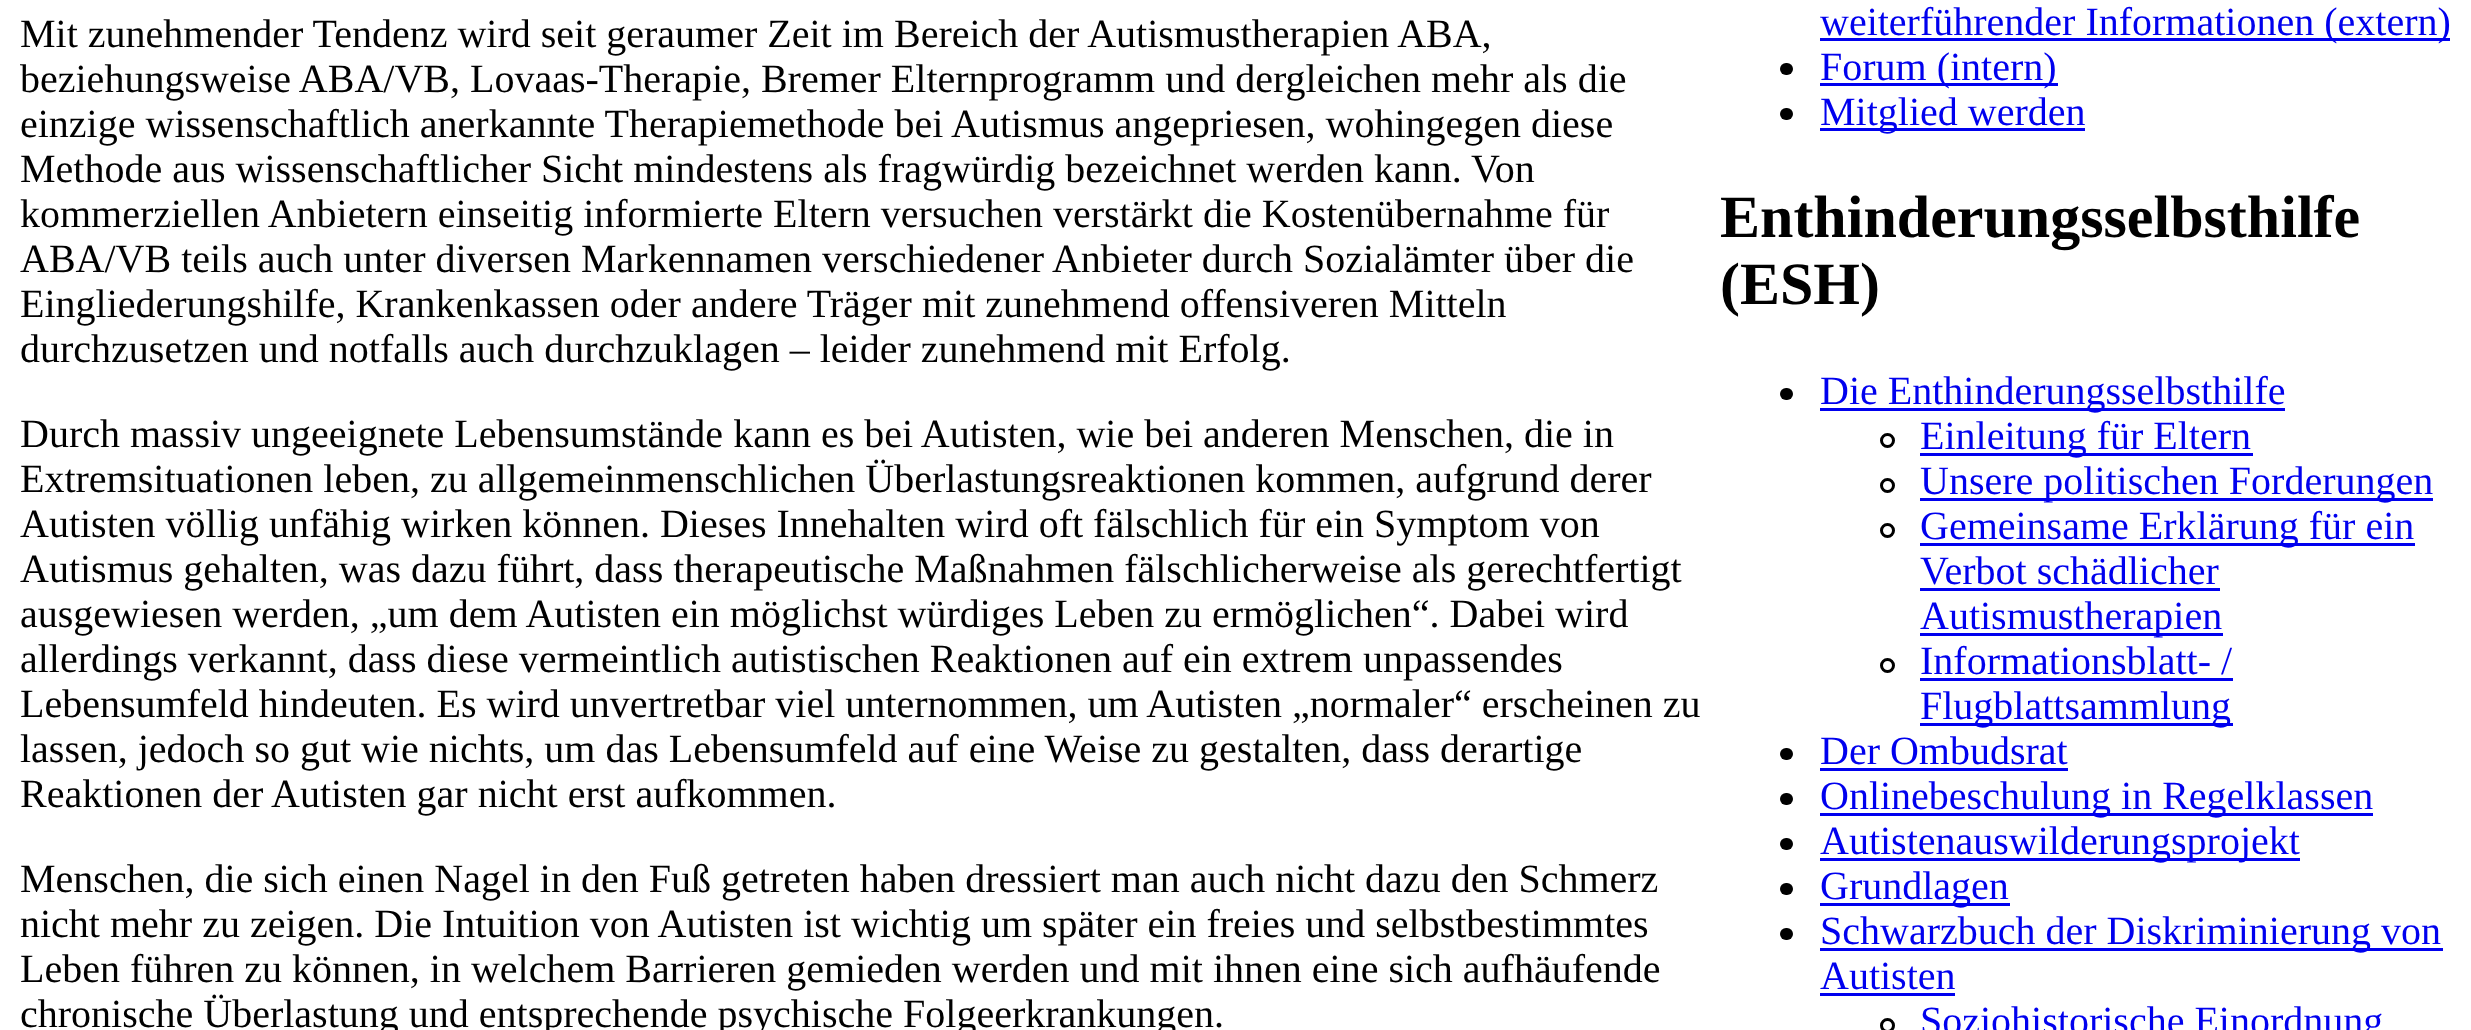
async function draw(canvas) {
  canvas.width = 2471;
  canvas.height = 1030;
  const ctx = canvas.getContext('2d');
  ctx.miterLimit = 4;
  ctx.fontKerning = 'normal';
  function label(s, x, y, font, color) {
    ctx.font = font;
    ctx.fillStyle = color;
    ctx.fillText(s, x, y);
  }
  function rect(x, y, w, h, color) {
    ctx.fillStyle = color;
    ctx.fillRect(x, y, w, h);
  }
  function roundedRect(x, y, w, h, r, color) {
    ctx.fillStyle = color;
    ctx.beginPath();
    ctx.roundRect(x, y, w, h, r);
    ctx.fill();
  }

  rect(0, 0, 2471, 1030, '#fff');
  label('Mit zunehmender Tendenz wird seit geraumer Zeit im Bereich der Autismustherapien ABA,', 20, 47, '40px Liberation Serif', '#000');
  label('beziehungsweise ABA/VB, Lovaas-Therapie, Bremer Elternprogramm und dergleichen mehr als die', 20, 92, '40px Liberation Serif', '#000');
  label('einzige wissenschaftlich anerkannte Therapiemethode bei Autismus angepriesen, wohingegen diese', 20, 137, '40px Liberation Serif', '#000');
  label('Methode aus wissenschaftlicher Sicht mindestens als fragwürdig bezeichnet werden kann. Von', 20, 182, '40px Liberation Serif', '#000');
  label('kommerziellen Anbietern einseitig informierte Eltern versuchen verstärkt die Kostenübernahme für', 20, 227, '40px Liberation Serif', '#000');
  label('ABA/VB teils auch unter diversen Markennamen verschiedener Anbieter durch Sozialämter über die', 20, 272, '40px Liberation Serif', '#000');
  label('Eingliederungshilfe, Krankenkassen oder andere Träger mit zunehmend offensiveren Mitteln', 20, 317, '40px Liberation Serif', '#000');
  label('durchzusetzen und notfalls auch durchzuklagen – leider zunehmend mit Erfolg.', 20, 362, '40px Liberation Serif', '#000');
  label('Durch massiv ungeeignete Lebensumstände kann es bei Autisten, wie bei anderen Menschen, die in', 20, 447, '40px Liberation Serif', '#000');
  label('Extremsituationen leben, zu allgemeinmenschlichen Überlastungsreaktionen kommen, aufgrund derer', 20, 492, '40px Liberation Serif', '#000');
  label('Autisten völlig unfähig wirken können. Dieses Innehalten wird oft fälschlich für ein Symptom von', 20, 537, '40px Liberation Serif', '#000');
  label('Autismus gehalten, was dazu führt, dass therapeutische Maßnahmen fälschlicherweise als gerechtfertigt', 20, 582, '40px Liberation Serif', '#000');
  label('ausgewiesen werden, „um dem Autisten ein möglichst würdiges Leben zu ermöglichen“. Dabei wird', 20, 627, '40px Liberation Serif', '#000');
  label('allerdings verkannt, dass diese vermeintlich autistischen Reaktionen auf ein extrem unpassendes', 20, 672, '40px Liberation Serif', '#000');
  label('Lebensumfeld hindeuten. Es wird unvertretbar viel unternommen, um Autisten „normaler“ erscheinen zu', 20, 717, '40px Liberation Serif', '#000');
  label('lassen, jedoch so gut wie nichts, um das Lebensumfeld auf eine Weise zu gestalten, dass derartige', 20, 762, '40px Liberation Serif', '#000');
  label('Reaktionen der Autisten gar nicht erst aufkommen.', 20, 807, '40px Liberation Serif', '#000');
  label('Menschen, die sich einen Nagel in den Fuß getreten haben dressiert man auch nicht dazu den Schmerz', 20, 892, '40px Liberation Serif', '#000');
  label('nicht mehr zu zeigen. Die Intuition von Autisten ist wichtig um später ein freies und selbstbestimmtes', 20, 937, '40px Liberation Serif', '#000');
  label('Leben führen zu können, in welchem Barrieren gemieden werden und mit ihnen eine sich aufhäufende', 20, 982, '40px Liberation Serif', '#000');
  label('chronische Überlastung und entsprechende psychische Folgeerkrankungen.', 20, 1027, '40px Liberation Serif', '#000');
  rect(1820, 38, 630, 3, '#00e');
  label('weiterführender Informationen (extern)', 1820, 35, '40px Liberation Serif', '#00e');
  roundedRect(1780, 63, 13, 12, 6, '#000');
  rect(1820, 83, 238, 3, '#00e');
  label('Forum (intern)', 1820, 80, '40px Liberation Serif', '#00e');
  roundedRect(1780, 108, 13, 12, 6, '#000');
  rect(1820, 128, 265, 3, '#00e');
  label('Mitglied werden', 1820, 125, '40px Liberation Serif', '#00e');
  label('Enthinderungsselbsthilfe', 1720, 237, 'bold 60px Liberation Serif', '#000');
  label('(ESH)', 1720, 304, 'bold 60px Liberation Serif', '#000');
  roundedRect(1780, 388, 13, 12, 6, '#000');
  rect(1820, 408, 465, 3, '#00e');
  label('Die Enthinderungsselbsthilfe', 1820, 404, '40px Liberation Serif', '#00e');
  ctx.beginPath();
  ctx.arc(1887.5, 440.5, 6, 0, 2 * Math.PI);
  ctx.strokeStyle = '#000';
  ctx.lineWidth = 3;
  ctx.stroke();
  rect(1920, 453, 333, 3, '#00e');
  label('Einleitung für Eltern', 1920, 449, '40px Liberation Serif', '#00e');
  ctx.beginPath();
  ctx.arc(1887.5, 485.5, 6, 0, 2 * Math.PI);
  ctx.stroke();
  rect(1920, 498, 513, 3, '#00e');
  label('Unsere politischen Forderungen', 1920, 494, '40px Liberation Serif', '#00e');
  ctx.beginPath();
  ctx.arc(1887.5, 530.5, 6, 0, 2 * Math.PI);
  ctx.stroke();
  rect(1920, 543, 495, 3, '#00e');
  label('Gemeinsame Erklärung für ein', 1920, 539, '40px Liberation Serif', '#00e');
  label('Verbot schädlicher', 1920, 584, '40px Liberation Serif', '#00e');
  rect(1920, 588, 300, 3, '#00e');
  rect(1920, 633, 303, 3, '#00e');
  label('Autismustherapien', 1920, 629, '40px Liberation Serif', '#00e');
  ctx.beginPath();
  ctx.arc(1887.5, 665.5, 6, 0, 2 * Math.PI);
  ctx.stroke();
  label('Informationsblatt- /', 1920, 674, '40px Liberation Serif', '#00e');
  rect(1920, 678, 313, 3, '#00e');
  rect(1920, 723, 313, 3, '#00e');
  label('Flugblattsammlung', 1920, 719, '40px Liberation Serif', '#00e');
  roundedRect(1780, 748, 13, 12, 6, '#000');
  label('Der Ombudsrat', 1820, 764, '40px Liberation Serif', '#00e');
  rect(1820, 768, 248, 3, '#00e');
  roundedRect(1780, 793, 13, 12, 6, '#000');
  rect(1820, 813, 553, 3, '#00e');
  label('Onlinebeschulung in Regelklassen', 1820, 809, '40px Liberation Serif', '#00e');
  roundedRect(1780, 838, 13, 12, 6, '#000');
  rect(1820, 858, 480, 3, '#00e');
  label('Autistenauswilderungsprojekt', 1820, 854, '40px Liberation Serif', '#00e');
  roundedRect(1780, 883, 13, 12, 6, '#000');
  rect(1820, 903, 190, 3, '#00e');
  label('Grundlagen', 1820, 899, '40px Liberation Serif', '#00e');
  roundedRect(1780, 928, 13, 12, 6, '#000');
  rect(1820, 948, 623, 3, '#00e');
  label('Schwarzbuch der Diskriminierung von', 1820, 944, '40px Liberation Serif', '#00e');
  label('Autisten', 1820, 989, '40px Liberation Serif', '#00e');
  rect(1820, 993, 135, 3, '#00e');
  ctx.beginPath();
  ctx.arc(1887.5, 1025.5, 6, 0, 2 * Math.PI);
  ctx.stroke();
  label('Soziohistorische Einordnung', 1920, 1034, '40px Liberation Serif', '#00e');
}

draw(document.querySelector('canvas'));
